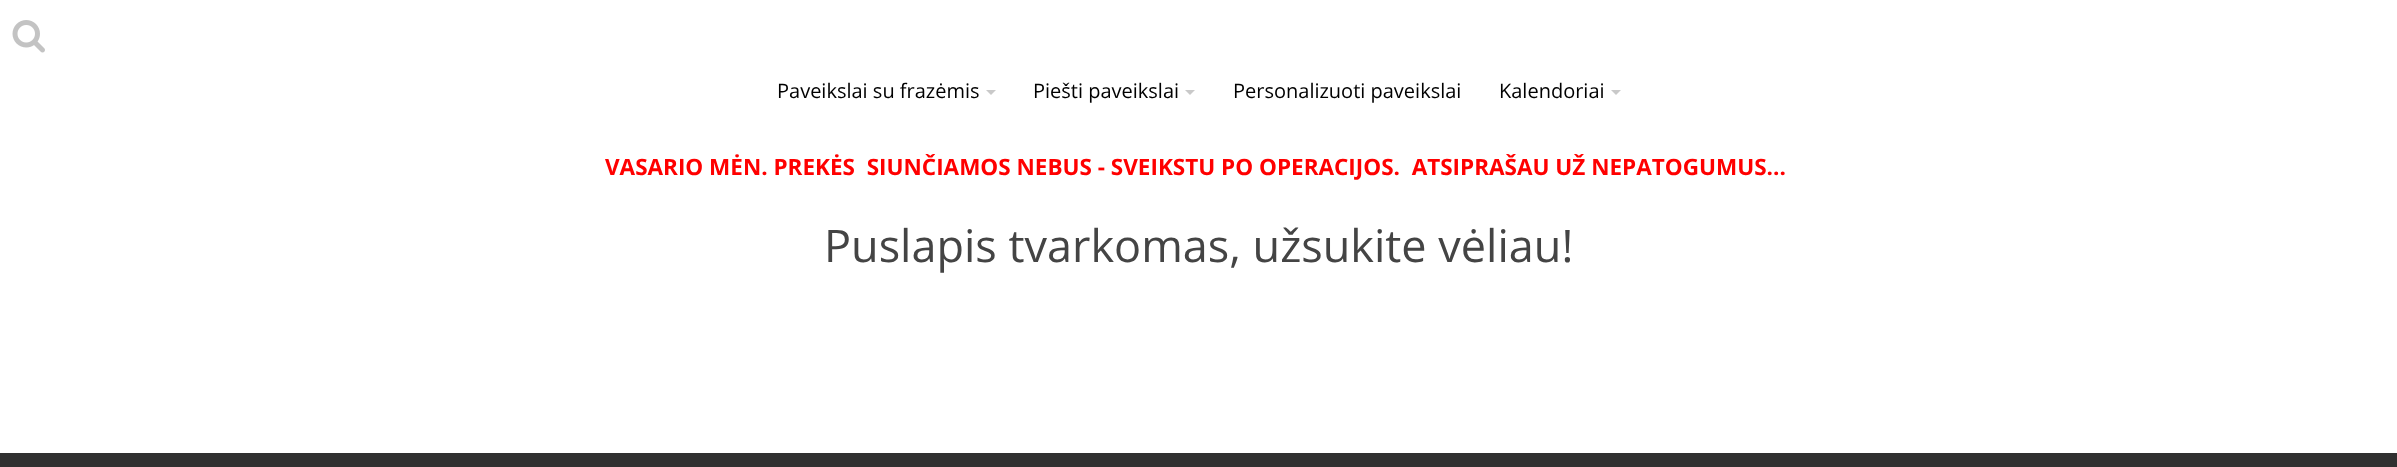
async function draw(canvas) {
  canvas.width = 2397;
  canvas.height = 467;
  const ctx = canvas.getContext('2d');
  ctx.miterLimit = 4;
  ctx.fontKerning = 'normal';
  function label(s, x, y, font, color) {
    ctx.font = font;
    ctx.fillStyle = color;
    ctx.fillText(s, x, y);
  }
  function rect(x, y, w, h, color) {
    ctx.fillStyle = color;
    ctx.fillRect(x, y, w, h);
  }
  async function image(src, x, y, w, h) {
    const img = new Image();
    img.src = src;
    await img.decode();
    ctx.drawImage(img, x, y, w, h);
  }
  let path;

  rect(0, 0, 2397, 467, '#fff');
  await image('assets/img1.png', 12, 20, 33, 33);
  label('Paveikslai su frazėmis', 777, 98, '20px Open Sans', '#000');
  ctx.fillStyle = '#c9c9c9';
  path = new Path2D('M986 90H996L991 95Z');
  ctx.fill(path);
  label('Piešti paveikslai', 1033, 98, '20px Open Sans', '#000');
  ctx.fillStyle = '#c9c9c9';
  path = new Path2D('M1185 90H1195L1190 95Z');
  ctx.fill(path);
  label('Personalizuoti paveikslai', 1233, 98, '20px Open Sans', '#000');
  label('Kalendoriai', 1499, 98, '20px Open Sans', '#000');
  ctx.fillStyle = '#c9c9c9';
  path = new Path2D('M1611 90H1621L1616 95Z');
  ctx.fill(path);
  label('VASARIO MĖN. PREKĖS  SIUNČIAMOS NEBUS - SVEIKSTU PO OPERACIJOS.  ATSIPRAŠAU UŽ NEPATOGUMUS...', 605, 175, 'bold 22.5px Open Sans', '#f00');
  label('Puslapis tvarkomas, užsukite vėliau!', 824, 262, '45px Open Sans', '#444');
  rect(0, 453, 2397, 14, '#303030');
}

draw(document.querySelector('canvas'));
